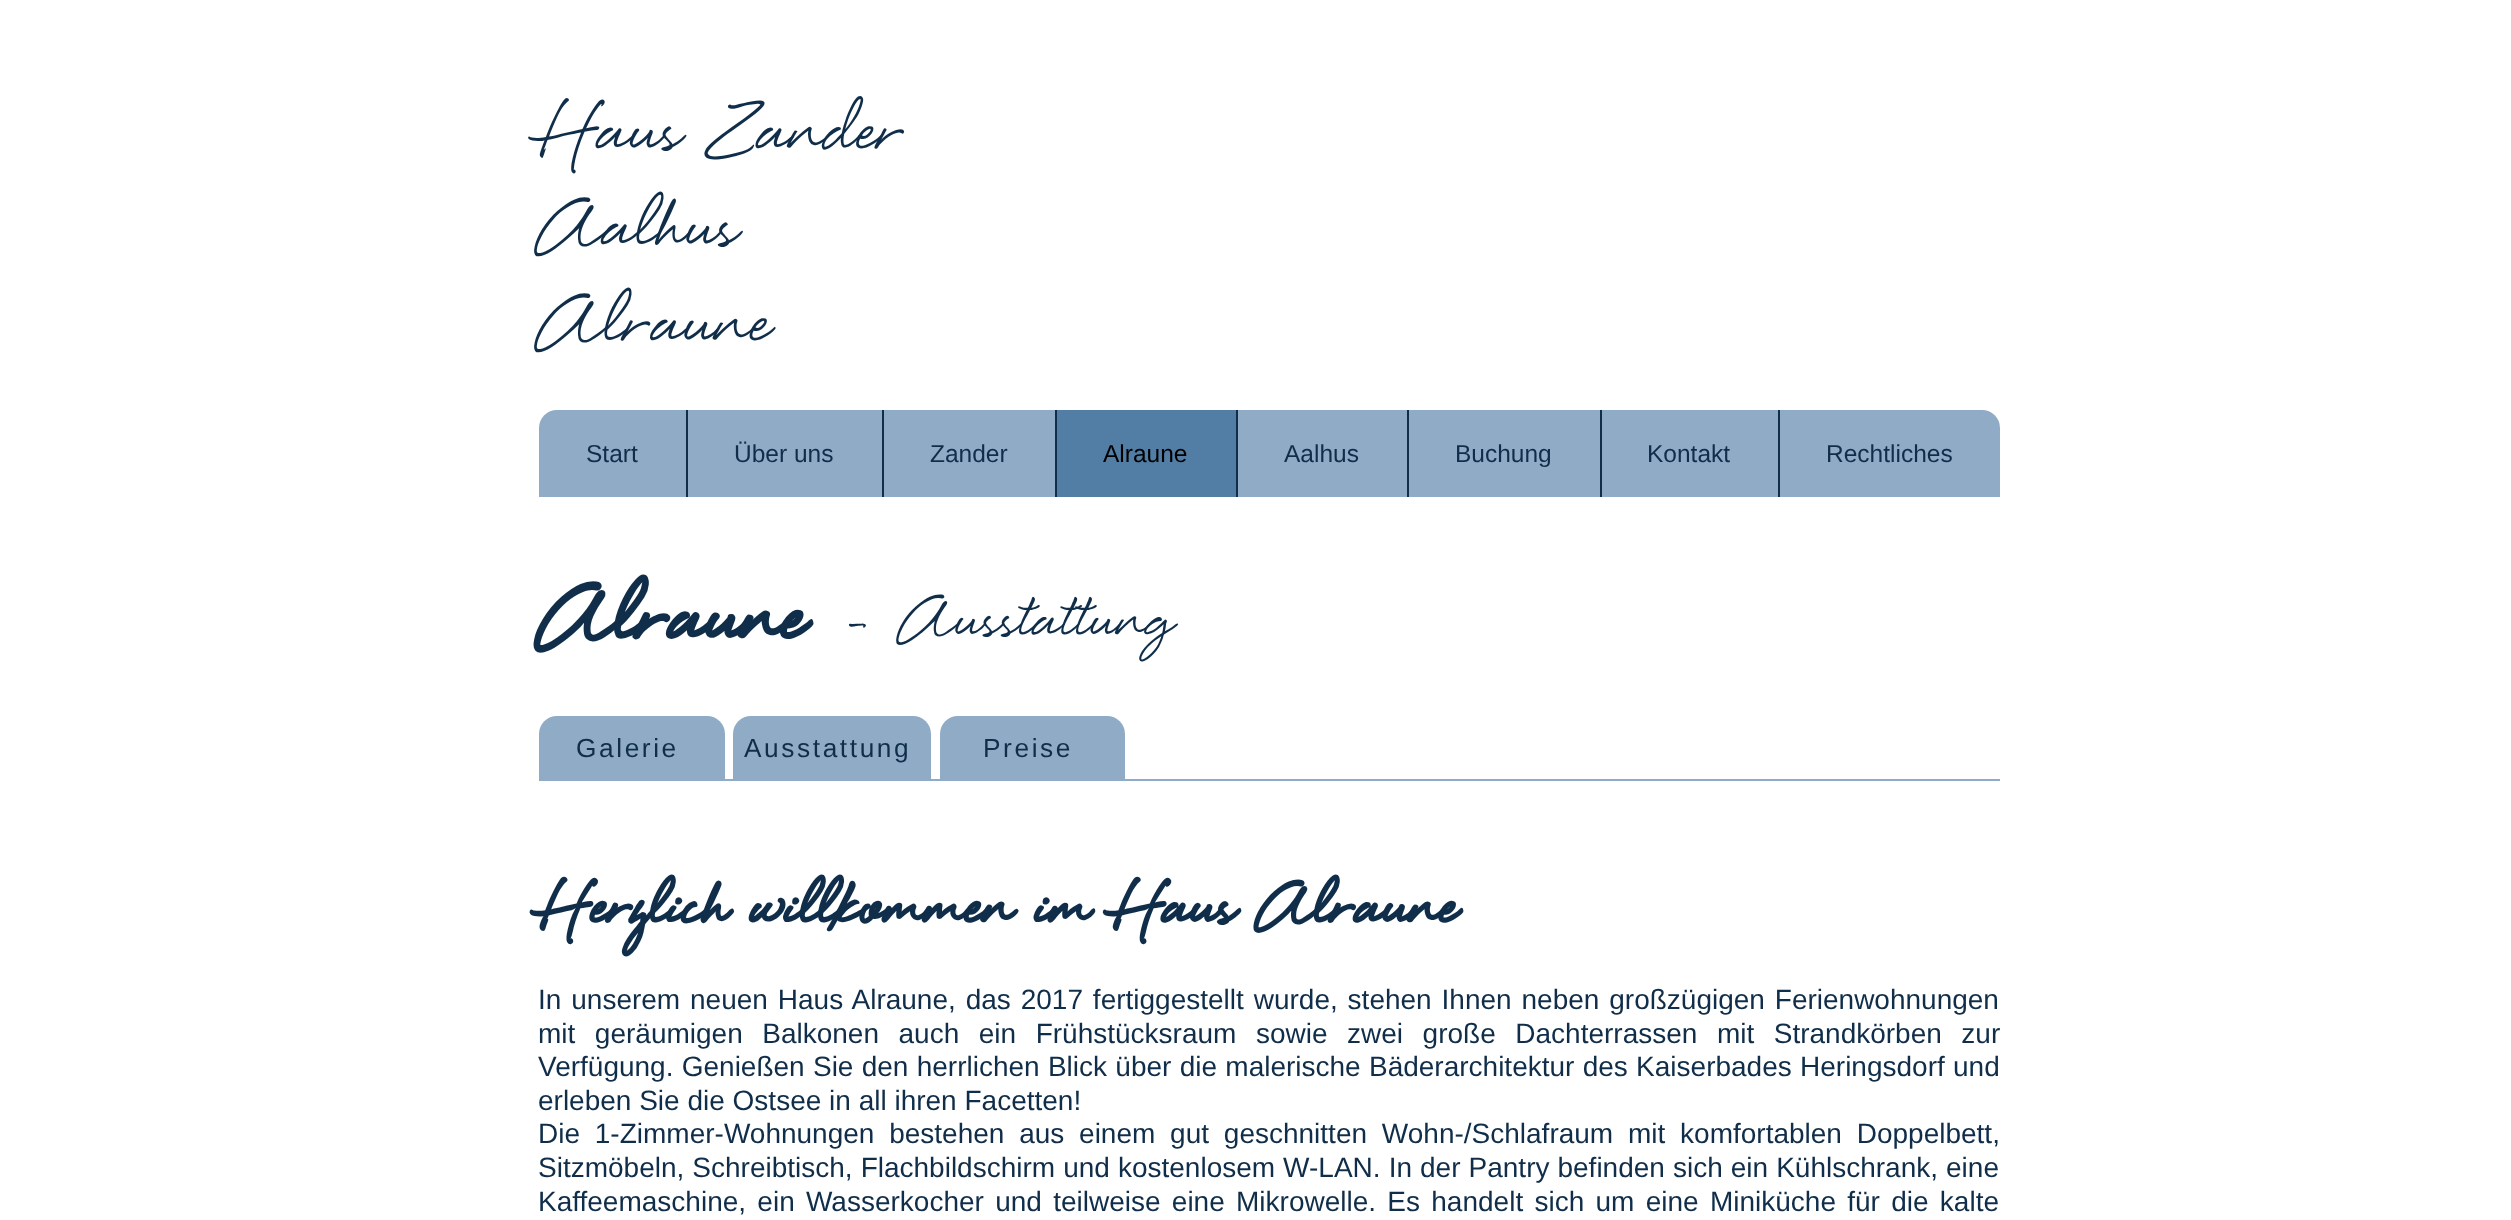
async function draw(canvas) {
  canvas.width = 2511;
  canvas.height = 1220;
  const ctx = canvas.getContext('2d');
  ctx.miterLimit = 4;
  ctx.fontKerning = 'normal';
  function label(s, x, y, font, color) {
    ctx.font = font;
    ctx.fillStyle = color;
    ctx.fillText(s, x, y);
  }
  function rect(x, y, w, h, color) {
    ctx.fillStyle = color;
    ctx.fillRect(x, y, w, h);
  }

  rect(0, 0, 2511, 1220, '#fff');
  label('Haus Zander', 538, 165, '122.5px "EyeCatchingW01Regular"', '#102e4a');
  label('Aalhus', 538, 261, '122.5px "EyeCatchingW01Regular"', '#102e4a');
  label('Alraune', 538, 357, '122.5px "EyeCatchingW01Regular"', '#102e4a');
  ctx.fillStyle = '#8fabc5';
  ctx.beginPath();
  ctx.roundRect(539, 410, 1461, 87, [18, 18, 0, 0]);
  ctx.fill();
  label('Start', 586, 462, '24.5px Liberation Sans', '#102e4a');
  rect(686, 410, 2, 87, '#102e4a');
  label('Über uns', 734, 462, '24.5px Liberation Sans', '#102e4a');
  rect(882, 410, 2, 87, '#102e4a');
  label('Zander', 930, 462, '24.5px Liberation Sans', '#102e4a');
  rect(1057, 410, 179, 87, '#527ea5');
  rect(1055, 410, 2, 87, '#102e4a');
  label('Alraune', 1103, 462, '24.5px Liberation Sans', '#000');
  rect(1236, 410, 2, 87, '#102e4a');
  label('Aalhus', 1284, 462, '24.5px Liberation Sans', '#102e4a');
  rect(1407, 410, 2, 87, '#102e4a');
  label('Buchung', 1455, 462, '24.5px Liberation Sans', '#102e4a');
  rect(1600, 410, 2, 87, '#102e4a');
  label('Kontakt', 1647, 462, '24.5px Liberation Sans', '#102e4a');
  rect(1778, 410, 2, 87, '#102e4a');
  label('Rechtliches', 1826, 462, '24.5px Liberation Sans', '#102e4a');
  label('Alraune', 538, 658, 'bold 140px "EyeCatchingW01Regular"', '#102e4a');
  label('- Ausstattung', 841, 649, '105px "EyeCatchingW01Regular"', '#102e4a');
  ctx.fillStyle = '#8fabc5';
  ctx.beginPath();
  ctx.roundRect(539, 716, 186, 63, [18, 18, 0, 0]);
  ctx.fill();
  ctx.letterSpacing = '2.6px';
  label('Galerie', 576, 757, '26.25px Liberation Sans', '#102e4a');
  ctx.fillStyle = '#8fabc5';
  ctx.beginPath();
  ctx.roundRect(733, 716, 198, 63, [18, 18, 0, 0]);
  ctx.fill();
  label('Ausstattung', 744, 757, '26.25px Liberation Sans', '#102e4a');
  ctx.fillStyle = '#8fabc5';
  ctx.beginPath();
  ctx.roundRect(940, 716, 185, 63, [18, 18, 0, 0]);
  ctx.fill();
  label('Preise', 983, 757, '26.25px Liberation Sans', '#102e4a');
  rect(539, 779, 1461, 2, '#8fabc5');
  ctx.letterSpacing = '0px';
  label('Herzlich willkommen im Haus Alraune', 538, 937, 'bold 105px "EyeCatchingW01Regular"', '#102e4a');
  ctx.wordSpacing = '2.1px';
  label('In unserem neuen Haus Alraune, das 2017 fertiggestellt wurde, stehen Ihnen neben großzügigen Ferienwohnungen', 538, 1009, '28px Liberation Sans', '#102e4a');
  ctx.wordSpacing = '11.75px';
  label('mit geräumigen Balkonen auch ein Frühstücksraum sowie zwei große Dachterrassen mit Strandkörben zur', 538, 1043, '28px Liberation Sans', '#102e4a');
  ctx.wordSpacing = '0.5px';
  label('Verfügung. Genießen Sie den herrlichen Blick über die malerische Bäderarchitektur des Kaiserbades Heringsdorf und', 538, 1076, '28px Liberation Sans', '#102e4a');
  ctx.wordSpacing = '0px';
  label('erleben Sie die Ostsee in all ihren Facetten!', 538, 1110, '28px Liberation Sans', '#102e4a');
  ctx.wordSpacing = '7px';
  label('Die 1-Zimmer-Wohnungen bestehen aus einem gut geschnitten Wohn-/Schlafraum mit komfortablen Doppelbett,', 538, 1143, '28px Liberation Sans', '#102e4a');
  ctx.wordSpacing = '0.25px';
  label('Sitzmöbeln, Schreibtisch, Flachbildschirm und kostenlosem W-LAN. In der Pantry befinden sich ein Kühlschrank, eine', 538, 1177, '28px Liberation Sans', '#102e4a');
  ctx.wordSpacing = '3.5px';
  label('Kaffeemaschine, ein Wasserkocher und teilweise eine Mikrowelle. Es handelt sich um eine Miniküche für die kalte', 538, 1211, '28px Liberation Sans', '#102e4a');
}

draw(document.querySelector('canvas'));
